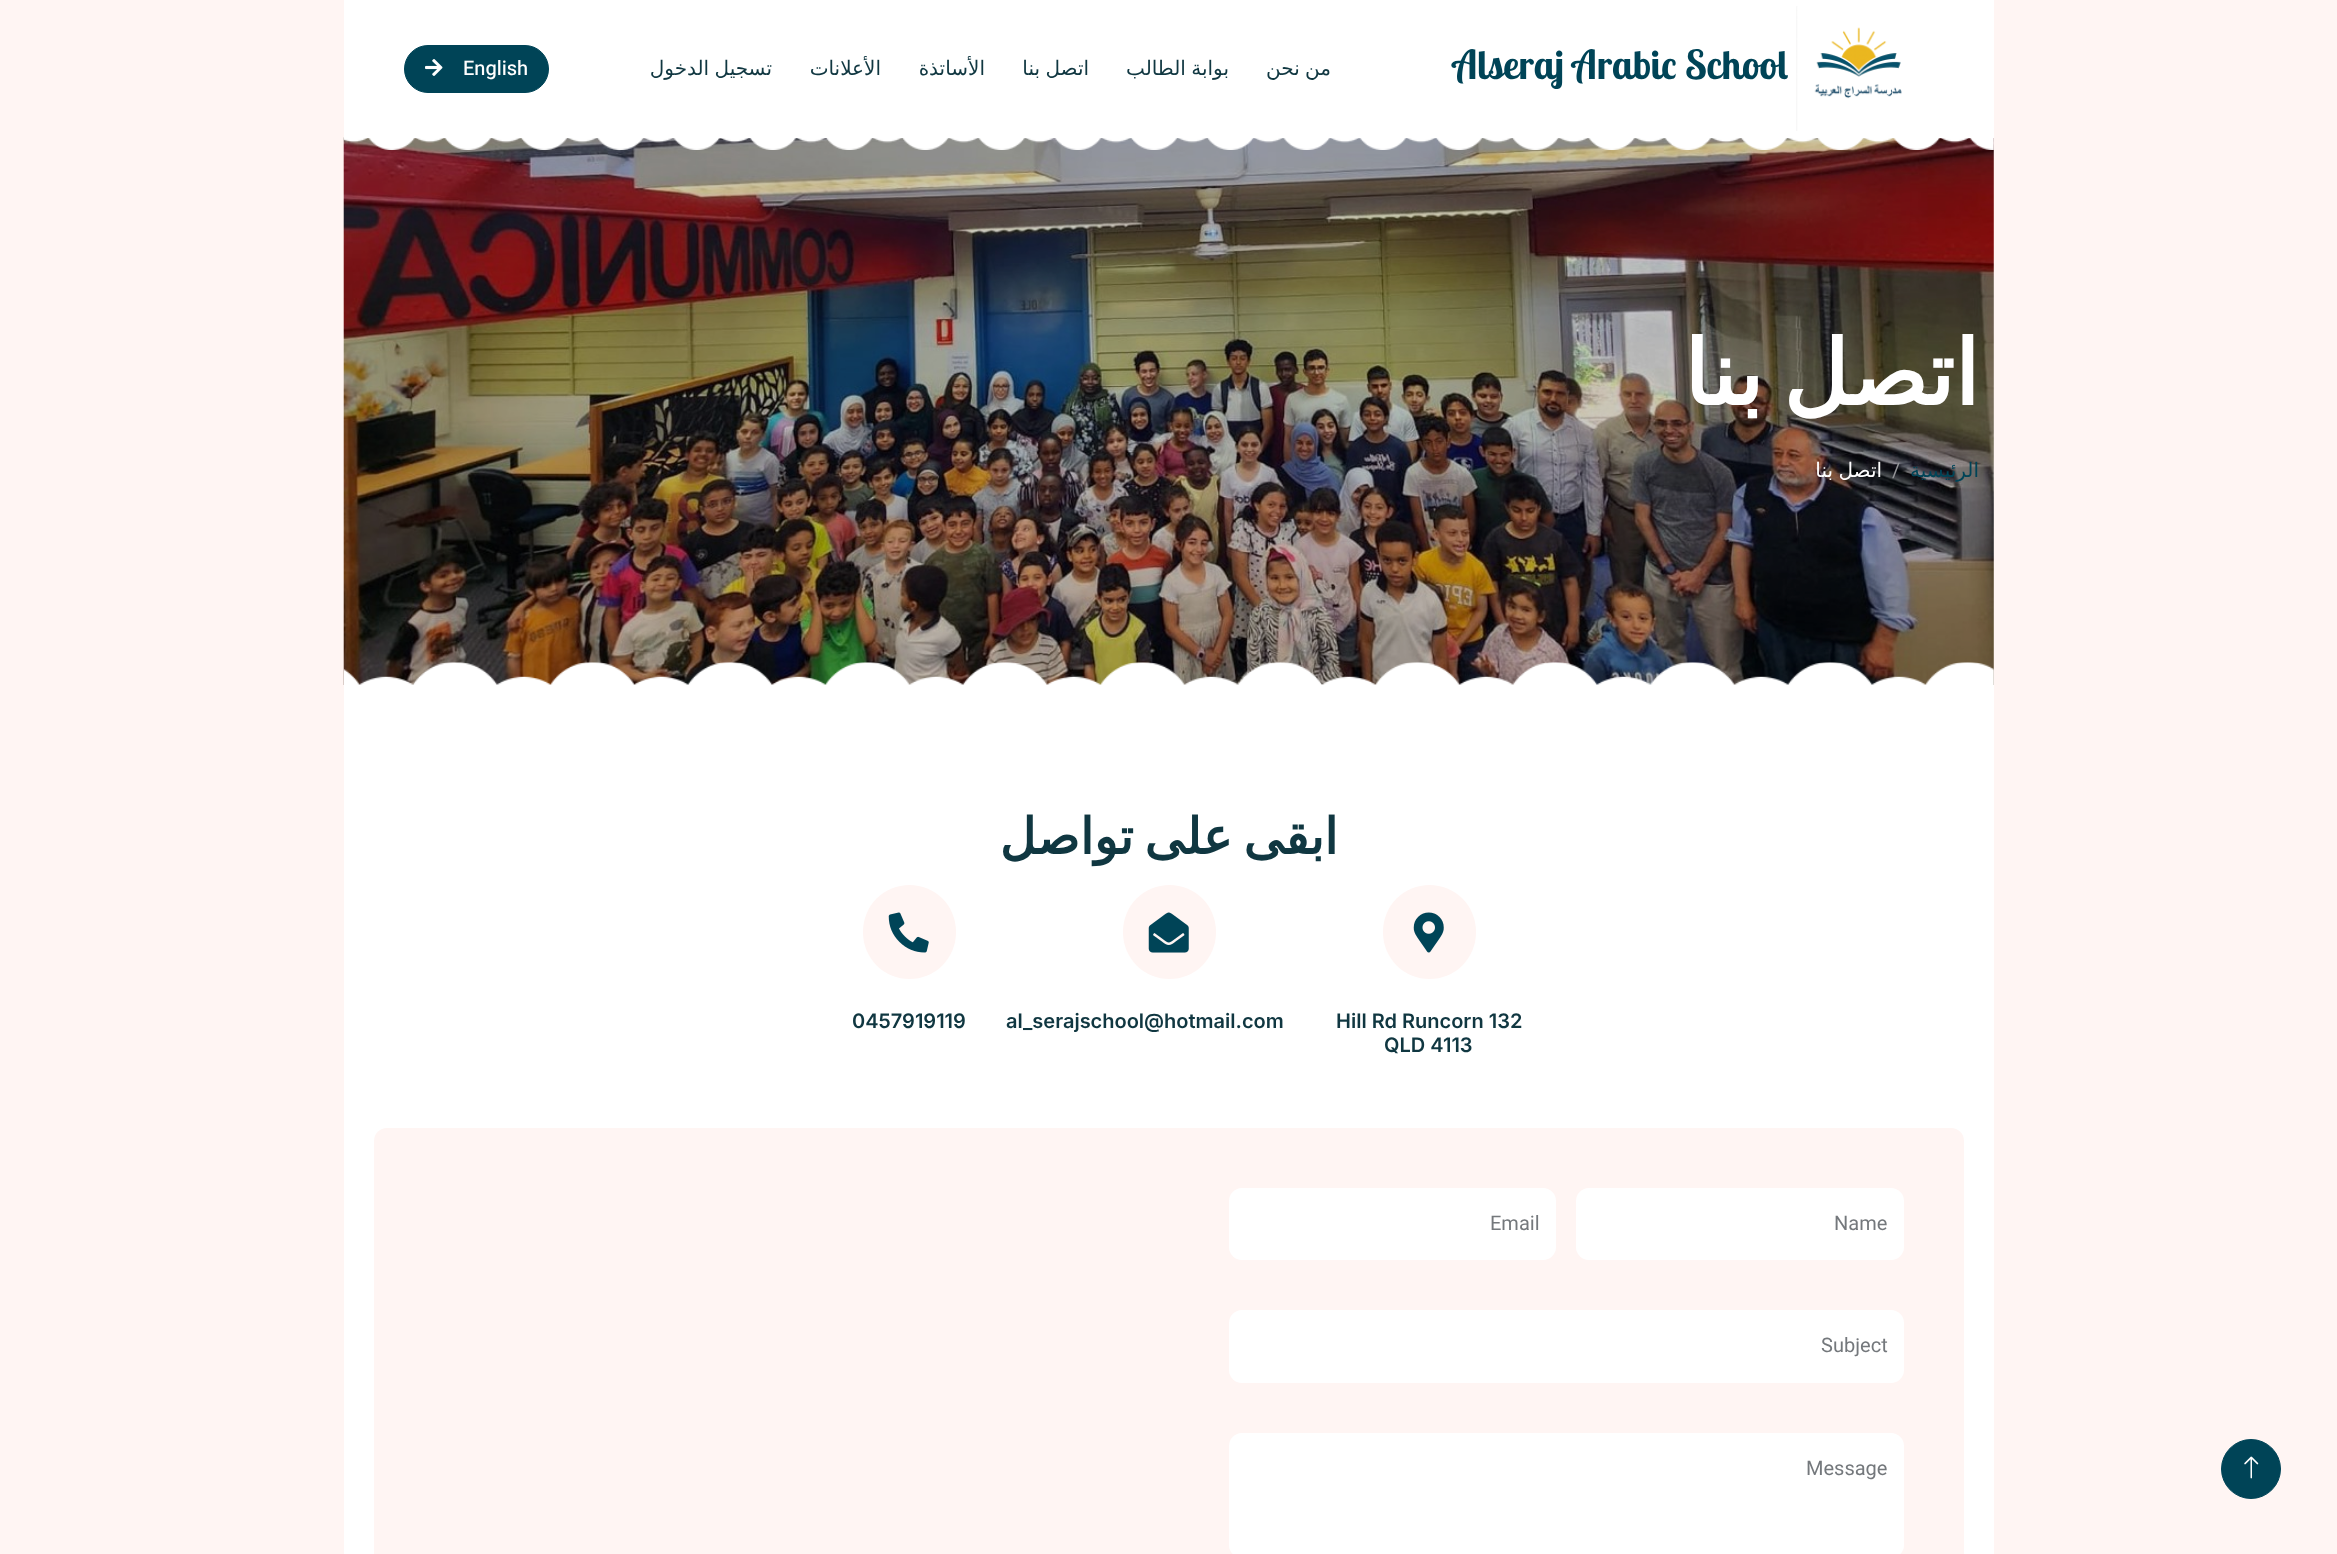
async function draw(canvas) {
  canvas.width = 2337;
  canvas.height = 1554;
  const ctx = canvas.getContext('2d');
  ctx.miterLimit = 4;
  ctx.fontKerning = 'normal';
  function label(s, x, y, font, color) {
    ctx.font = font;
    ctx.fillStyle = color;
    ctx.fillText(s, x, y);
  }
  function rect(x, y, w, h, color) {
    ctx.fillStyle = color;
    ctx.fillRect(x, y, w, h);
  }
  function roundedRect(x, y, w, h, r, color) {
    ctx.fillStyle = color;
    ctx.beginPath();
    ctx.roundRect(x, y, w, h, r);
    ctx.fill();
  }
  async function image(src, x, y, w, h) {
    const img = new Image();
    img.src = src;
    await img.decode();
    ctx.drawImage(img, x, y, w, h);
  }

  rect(0, 0, 2337, 1554, '#fff5f3');
  rect(344, 138, 1650, 1416, '#fff');
  await image('assets/img3.png', 343, 137, 1651, 548);
  await image('assets/img4.png', 343, 137, 1651, 13);
  rect(344, 0, 1650, 138, '#fff');
  ctx.fillStyle = '#004457';
  ctx.beginPath();
  ctx.roundRect(404.5, 45.5, 144, 47, 23.5);
  ctx.fill();
  ctx.strokeStyle = '#004457';
  ctx.stroke();
  await image('assets/img1.png', 425, 59, 18, 17);
  label('English', 463, 75, '500 20px Heebo', '#fff');
  ctx.wordSpacing = '-1px';
  ctx.direction = 'rtl';
  label('تسجيل الدخول', 772, 75, '20px DejaVu Sans', '#103741');
  ctx.wordSpacing = '0px';
  label('الأعلانات', 881, 75, '20px DejaVu Sans', '#103741');
  label('الأساتذة', 985, 75, '20px DejaVu Sans', '#103741');
  ctx.wordSpacing = '-1px';
  label('اتصل بنا', 1089, 75, '20px DejaVu Sans', '#103741');
  label('بوابة الطالب', 1229, 75, '20px DejaVu Sans', '#103741');
  label('من نحن', 1331, 75, '20px DejaVu Sans', '#103741');
  ctx.wordSpacing = '0px';
  ctx.direction = 'ltr';
  label('Alseraj Arabic School', 1453, 79, 'bold 40px Lobster Two', '#004457');
  await image('assets/img2.png', 1796, 6, 106, 125);
  ctx.wordSpacing = '-9px';
  ctx.direction = 'rtl';
  label('اتصل بنا', 1979, 405, 'bold 90px DejaVu Sans', '#fff');
  ctx.wordSpacing = '-1px';
  label('اتصل بنا', 1882, 477, '20px DejaVu Sans', '#fff');
  ctx.wordSpacing = '0px';
  ctx.direction = 'ltr';
  label('/', 1892, 477, '20px Heebo', '#949598');
  ctx.direction = 'rtl';
  label('الرئيسية', 1979, 477, '20px DejaVu Sans', '#004457');
  await image('assets/img5.png', 343, 662, 1651, 23);
  ctx.wordSpacing = '-5px';
  label('ابقى على تواصل', 1338, 854, 'bold 50px DejaVu Sans', '#103741');
  roundedRect(863, 885, 93, 94, 46.5, '#fff5f3');
  await image('assets/img6.png', 888, 912, 41, 41);
  ctx.wordSpacing = '0px';
  ctx.direction = 'ltr';
  label('0457919119', 852, 1028, '600 20px Inter', '#103741');
  roundedRect(1123, 885, 93, 94, 46.5, '#fff5f3');
  await image('assets/img7.png', 1148, 912, 41, 41);
  label('al_serajschool@hotmail.com', 1006, 1028, '600 20px Inter', '#103741');
  roundedRect(1383, 885, 93, 94, 46.5, '#fff5f3');
  await image('assets/img8.png', 1413, 912, 31, 41);
  label('Hill Rd Runcorn 132', 1336, 1028, '600 20px Inter', '#103741');
  label('QLD 4113', 1384, 1052, '600 20px Inter', '#103741');
  roundedRect(374, 1128, 1590, 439, 13, '#fff5f3');
  roundedRect(1229, 1188, 327, 72, 13, '#fff');
  label('Email', 1490, 1230, '20px Heebo', '#74787c');
  roundedRect(1576, 1188, 328, 72, 13, '#fff');
  label('Name', 1834, 1230, '20px Heebo', '#74787c');
  roundedRect(1229, 1310, 675, 73, 13, '#fff');
  label('Subject', 1821, 1352, '20px Heebo', '#74787c');
  roundedRect(1229, 1433, 675, 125, 13, '#fff');
  label('Message', 1806, 1475, '20px Heebo', '#74787c');
  ctx.fillStyle = '#004457';
  ctx.beginPath();
  ctx.arc(2251, 1469, 29.5, 0, 2 * Math.PI);
  ctx.fill();
  ctx.stroke();
  await image('assets/img9.png', 2244, 1456, 15, 23);
}

draw(document.querySelector('canvas'));
